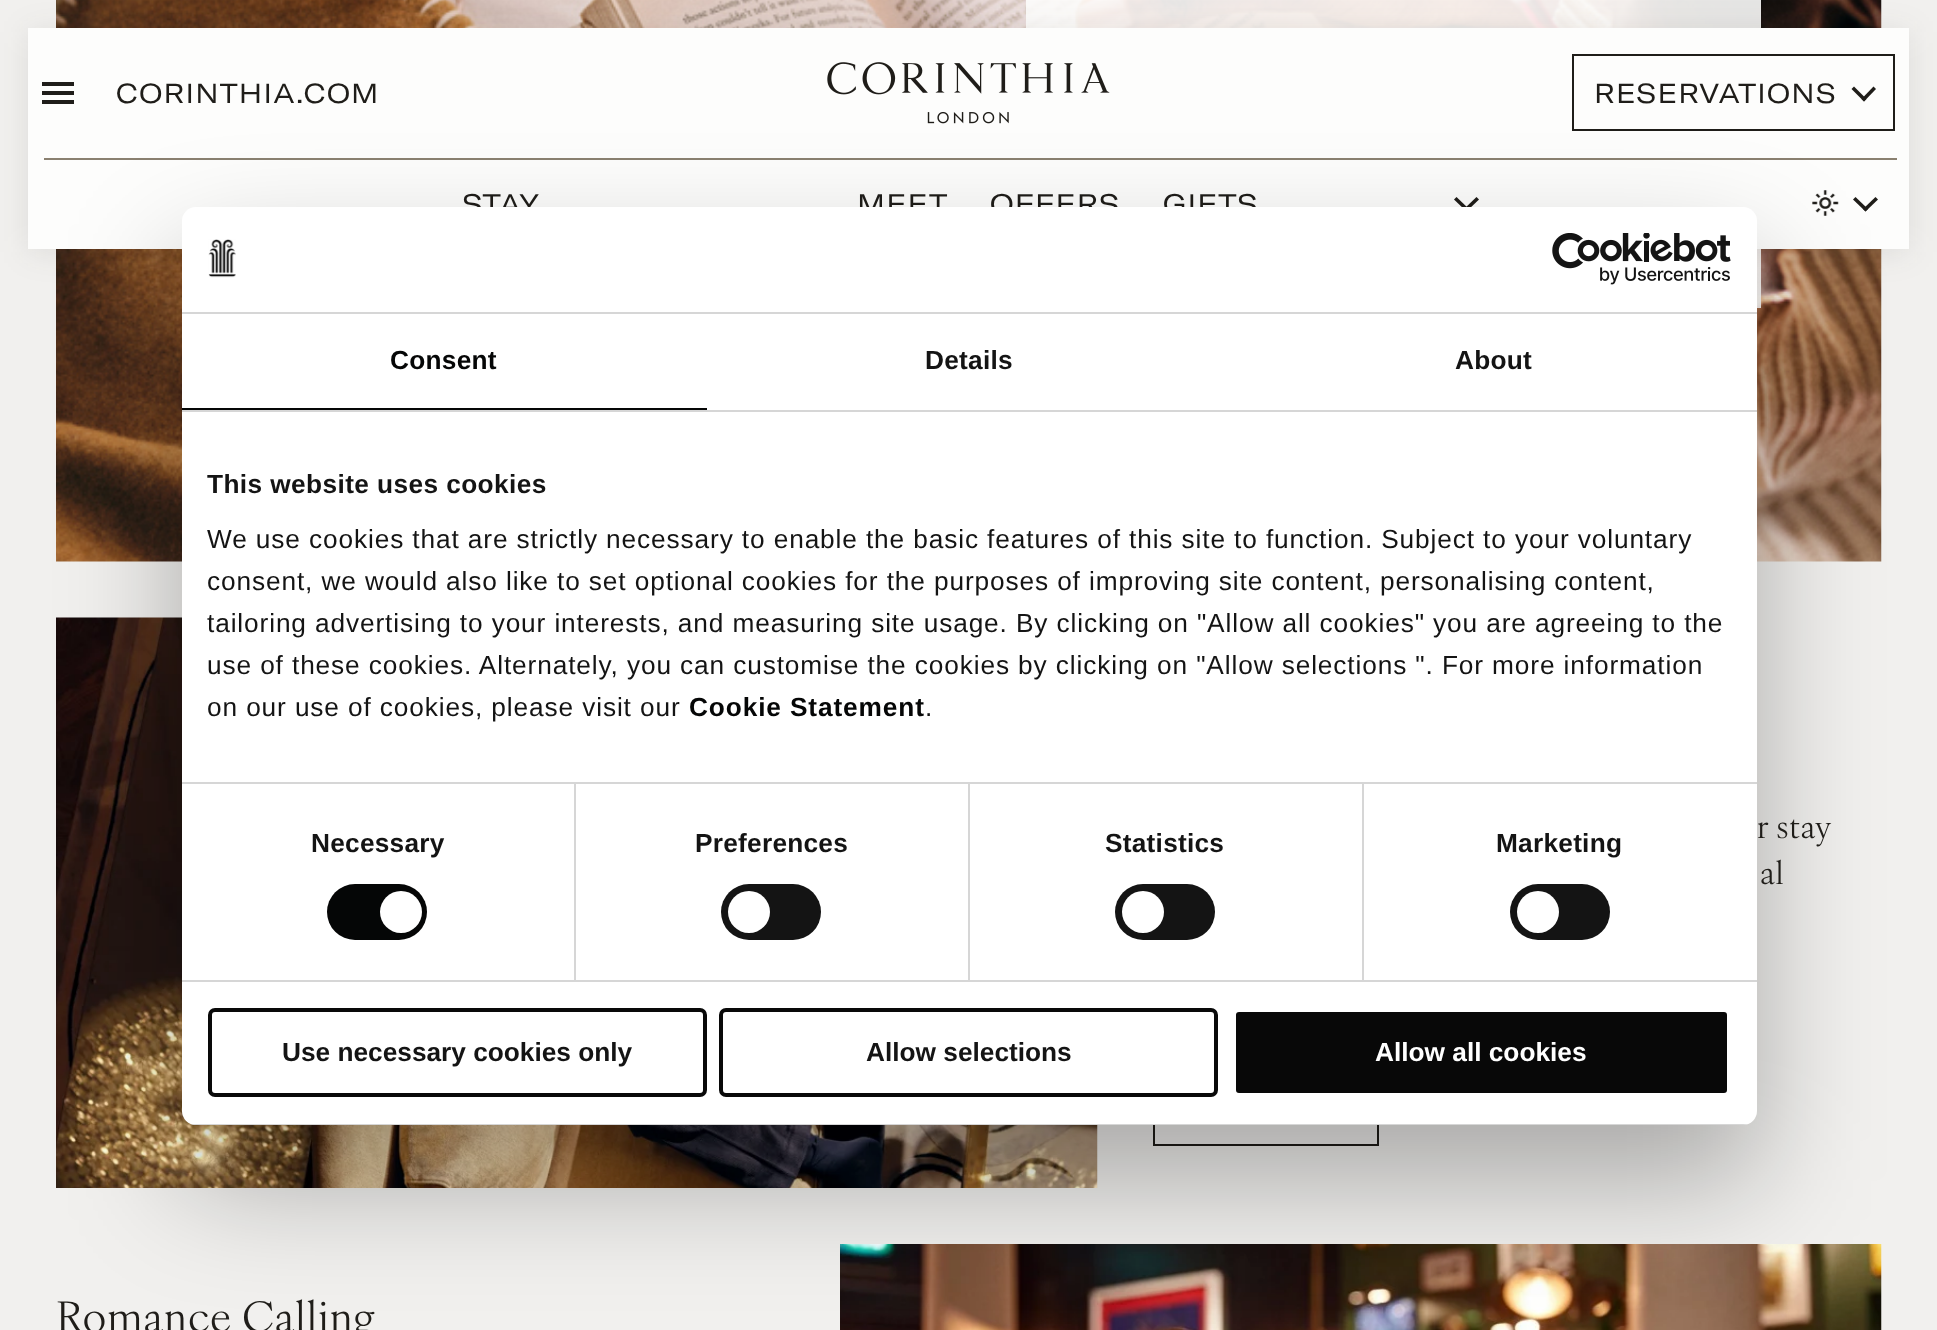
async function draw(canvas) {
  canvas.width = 1937;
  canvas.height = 1330;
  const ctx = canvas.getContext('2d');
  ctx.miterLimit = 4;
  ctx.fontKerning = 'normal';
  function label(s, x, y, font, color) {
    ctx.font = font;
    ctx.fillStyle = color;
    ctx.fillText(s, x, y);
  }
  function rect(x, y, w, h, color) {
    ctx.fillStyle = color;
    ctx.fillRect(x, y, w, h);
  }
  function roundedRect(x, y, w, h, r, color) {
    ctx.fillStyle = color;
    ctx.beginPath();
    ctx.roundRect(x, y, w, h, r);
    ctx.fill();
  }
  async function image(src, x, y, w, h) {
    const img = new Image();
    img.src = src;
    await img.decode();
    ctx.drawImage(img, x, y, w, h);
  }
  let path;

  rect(0, 0, 1937, 1330, '#f1f0ee');
  await image('assets/img5.png', 56, 0, 1826, 562);
  rect(1026, 0, 735, 308, '#fdfdfce6');
  ctx.fillStyle = '#332f291a';
  ctx.filter = 'blur(16px)';
  ctx.beginPath();
  ctx.rect(28, 32, 1881, 220);
  ctx.fill();
  ctx.filter = 'none';
  rect(28, 28, 1881, 221, '#fdfdfc');
  rect(42, 82, 32, 4, '#1f1d19');
  rect(42, 91, 32, 4, '#1f1d19');
  rect(42, 100, 32, 4, '#1f1d19');
  ctx.letterSpacing = '1.25px';
  label('CORINTHIA.COM', 116, 103, '27.1px GT America', '#1f1d19');
  await image('assets/img1.png', 827, 62, 283, 62);
  ctx.strokeStyle = '#1f1d19';
  ctx.lineWidth = 2;
  ctx.strokeRect(1573, 55, 321, 75);
  label('RESERVATIONS', 1594, 103, '27.1px GT America', '#1f1d19');
  path = new Path2D('M1873.5 86.5L1876 89L1864 101.5L1861.5 99Z');
  ctx.fill(path);
  path = new Path2D('M1854 86.5L1866.5 99L1864 101.5L1851.5 89Z');
  ctx.fill(path);
  rect(44, 158, 1853, 2, '#8a8070');
  label('STAY', 462, 214, '27.75px GT America', '#1f1d19');
  label('MEET', 857, 214, '27.75px GT America', '#1f1d19');
  label('OFFERS', 990, 214, '27.75px GT America', '#1f1d19');
  label('GIFTS', 1163, 214, '27.75px GT America', '#1f1d19');
  path = new Path2D('M1476.5 197L1479 199.5L1466.5 211.5L1464 209Z');
  ctx.fill(path);
  path = new Path2D('M1456.5 197L1469 209L1466.5 211.5L1454 199.5Z');
  ctx.fill(path);
  await image('assets/img2.png', 1812, 190, 27, 26);
  path = new Path2D('M1875.5 197L1878 199.5L1865.5 211.5L1863 209Z');
  ctx.fill(path);
  path = new Path2D('M1855.5 197L1868 209L1865.5 211.5L1853 199.5Z');
  ctx.fill(path);
  await image('assets/img6.png', 56, 617, 1042, 571);
  ctx.strokeRect(1154, 1070, 224, 75);
  await image('assets/img7.png', 840, 1244, 1042, 86);
  ctx.fillStyle = '#0000004d';
  ctx.filter = 'blur(59.5px)';
  ctx.beginPath();
  ctx.roundRect(182, 263, 1575, 918, 14);
  ctx.fill();
  ctx.filter = 'none';
  roundedRect(182, 207, 1575, 918, 14, '#fff');
  rect(182, 312, 1575, 2, '#d6d6d6');
  await image('assets/img3.png', 208, 239, 28, 39);
  await image('assets/img4.png', 1552, 233, 179, 52);
  rect(182, 410, 1575, 2, '#d6d6d6');
  rect(182, 408, 525, 2, '#050606');
  ctx.letterSpacing = '0.25px';
  label('Consent', 390, 369, 'bold 26.25px Liberation Sans', '#050606');
  label('Details', 925, 369, 'bold 26.25px Liberation Sans', '#141414');
  label('About', 1455, 369, 'bold 26.25px Liberation Sans', '#141414');
  rect(182, 782, 1575, 2, '#d6d6d6');
  ctx.letterSpacing = '0.4px';
  label('This website uses cookies', 207, 493, 'bold 26.25px Liberation Sans', '#141414');
  ctx.letterSpacing = '0.88px';
  label('We use cookies that are strictly necessary to enable the basic features of this site to function. Subject to your voluntary', 207, 548, '26.25px Liberation Sans', '#141414');
  label('consent, we would also like to set optional cookies for the purposes of improving site content, personalising content,', 207, 590, '26.25px Liberation Sans', '#141414');
  label('tailoring advertising to your interests, and measuring site usage. By clicking on "Allow all cookies" you are agreeing to the', 207, 632, '26.25px Liberation Sans', '#141414');
  label('use of these cookies. Alternately, you can customise the cookies by clicking on "Allow selections ". For more information', 207, 674, '26.25px Liberation Sans', '#141414');
  label('on our use of cookies, please visit our', 207, 716, '26.25px Liberation Sans', '#141414');
  label('Cookie Statement', 689, 716, 'bold 26.25px Liberation Sans', '#050606');
  label('.', 925, 716, '26.25px Liberation Sans', '#141414');
  rect(182, 980, 1575, 2, '#d6d6d6');
  rect(574, 784, 2, 196, '#d6d6d6');
  ctx.letterSpacing = '0.25px';
  label('Necessary', 311, 852, 'bold 26.25px Liberation Sans', '#141414');
  roundedRect(327, 884, 100, 56, 28, '#050606');
  ctx.fillStyle = '#fff';
  ctx.beginPath();
  ctx.arc(401, 912, 21, 0, 2 * Math.PI);
  ctx.fill();
  rect(968, 784, 2, 196, '#d6d6d6');
  label('Preferences', 695, 852, 'bold 26.25px Liberation Sans', '#141414');
  roundedRect(721, 884, 100, 56, 28, '#141414');
  ctx.fillStyle = '#fff';
  ctx.beginPath();
  ctx.arc(749, 912, 21, 0, 2 * Math.PI);
  ctx.fill();
  rect(1362, 784, 2, 196, '#d6d6d6');
  label('Statistics', 1105, 852, 'bold 26.25px Liberation Sans', '#141414');
  roundedRect(1115, 884, 100, 56, 28, '#141414');
  ctx.fillStyle = '#fff';
  ctx.beginPath();
  ctx.arc(1143, 912, 21, 0, 2 * Math.PI);
  ctx.fill();
  label('Marketing', 1496, 852, 'bold 26.25px Liberation Sans', '#141414');
  roundedRect(1510, 884, 100, 56, 28, '#141414');
  ctx.fillStyle = '#fff';
  ctx.beginPath();
  ctx.arc(1538, 912, 21, 0, 2 * Math.PI);
  ctx.fill();
  ctx.save();
  ctx.beginPath();
  ctx.roundRect(182, 207, 1575, 918, 14);
  ctx.clip();
  rect(191, 1124, 1557, 1, '#d6d6d6');
  ctx.restore();
  ctx.beginPath();
  ctx.roundRect(210, 1010, 495, 85, 5);
  ctx.strokeStyle = '#090909';
  ctx.lineWidth = 4;
  ctx.stroke();
  ctx.letterSpacing = '0px';
  label('Use necessary cookies only', 282, 1061, 'bold 26.25px Liberation Sans', '#141414');
  ctx.beginPath();
  ctx.roundRect(721, 1010, 495, 85, 5);
  ctx.stroke();
  label('Allow selections', 866, 1061, 'bold 26.25px Liberation Sans', '#141414');
  ctx.fillStyle = '#080808';
  ctx.beginPath();
  ctx.roundRect(1234, 1010, 495, 85, 5);
  ctx.fill();
  ctx.strokeStyle = '#fff';
  ctx.stroke();
  label('Allow all cookies', 1375, 1061, 'bold 26.25px Liberation Sans', '#fff');
  ctx.letterSpacing = '0.5px';
  label('r stay', 1757, 838, '31.5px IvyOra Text', '#1f1d19');
  label('al', 1760, 884, '31.5px IvyOra Text', '#1f1d19');
  ctx.letterSpacing = '0.6px';
  label('Romance Calling', 56, 1332, '42px IvyOra Text', '#1f1d19');
}

draw(document.querySelector('canvas'));
